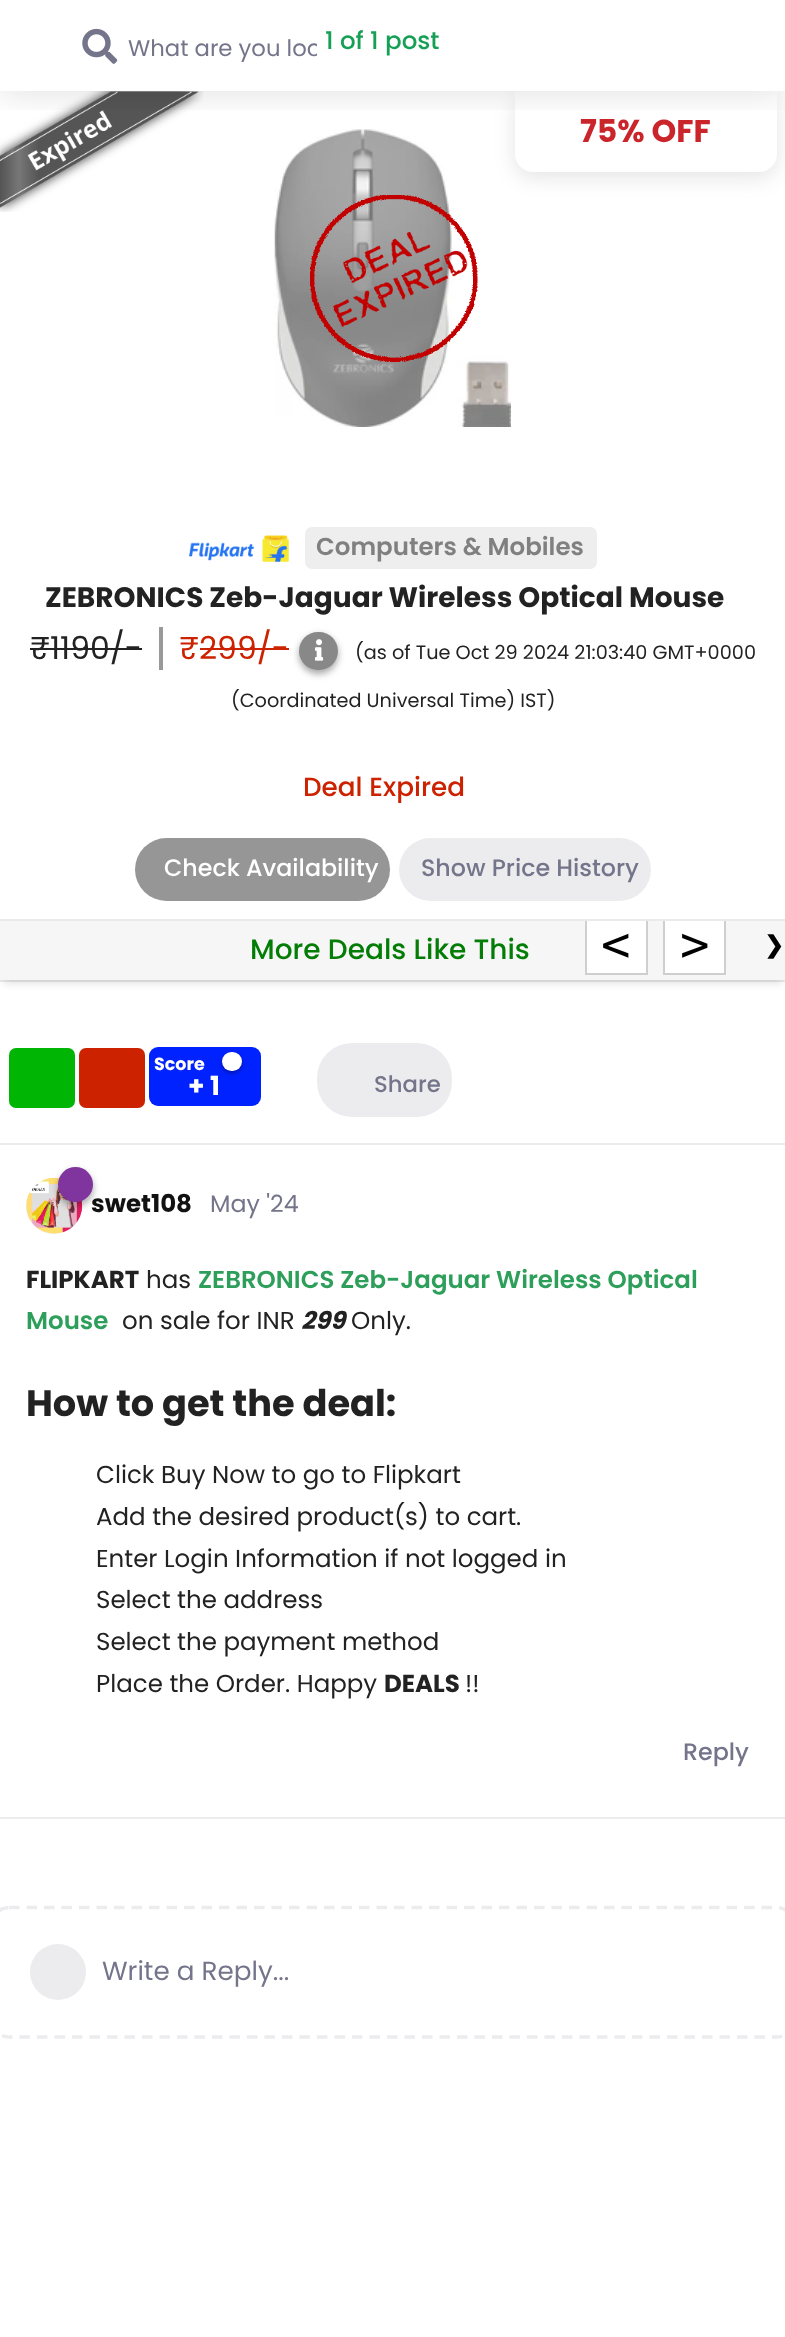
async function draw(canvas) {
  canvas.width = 785;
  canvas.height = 2337;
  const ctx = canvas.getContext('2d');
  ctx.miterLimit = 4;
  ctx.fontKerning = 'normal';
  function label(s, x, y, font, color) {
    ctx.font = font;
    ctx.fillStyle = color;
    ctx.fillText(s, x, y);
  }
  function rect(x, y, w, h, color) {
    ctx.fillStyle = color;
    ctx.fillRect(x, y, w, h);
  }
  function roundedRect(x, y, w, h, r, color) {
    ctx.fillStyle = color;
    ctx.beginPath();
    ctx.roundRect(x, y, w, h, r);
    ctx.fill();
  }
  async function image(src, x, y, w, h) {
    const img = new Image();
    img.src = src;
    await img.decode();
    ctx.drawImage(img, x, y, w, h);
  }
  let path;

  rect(0, 0, 785, 2337, '#fcfcfc');
  rect(0, 81, 785, 838, '#fff');
  await image('assets/img2.png', 0, 82, 203, 130);
  await image('assets/img5.png', 274, 129, 237, 298);
  ctx.fillStyle = '#0000001c';
  ctx.filter = 'blur(10.5px)';
  ctx.beginPath();
  ctx.roundRect(515, 95, 262, 82, 18);
  ctx.fill();
  ctx.filter = 'none';
  ctx.fillStyle = '#fff';
  ctx.beginPath();
  ctx.roundRect(515, 89, 262, 83, [0, 0, 18, 18]);
  ctx.fill();
  ctx.save();
  ctx.beginPath();
  ctx.rect(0, 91, 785, 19);
  ctx.clip();
  ctx.fillStyle = '#0000001f';
  ctx.filter = 'blur(17.5px)';
  ctx.beginPath();
  ctx.rect(0, 2, 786, 91);
  ctx.fill();
  ctx.filter = 'none';
  ctx.restore();
  rect(0, 0, 785, 91, '#fffffffa');
  rect(0, 982, 785, 1355, '#fff');
  rect(0, 1143, 785, 2, '#ececef');
  label('1 of 1 post', 325, 49, '500 24.5px Poppins', '#16a055');
  roundedRect(9, 1048, 66, 60, 7, '#00b504');
  roundedRect(79, 1048, 66, 60, 7, '#c20');
  roundedRect(149, 1047, 112, 59, 9, '#02f');
  label('Score', 154, 1070, 'bold 17.5px Poppins', '#fff');
  ctx.fillStyle = '#00000059';
  ctx.filter = 'blur(2px)';
  ctx.beginPath();
  ctx.roundRect(222, 1054, 20, 19, 9.5);
  ctx.fill();
  ctx.filter = 'none';
  roundedRect(222, 1052, 20, 19, 9.5, '#fff');
  label('+ 1', 188, 1095, 'bold 26.25px Poppins', '#fff');
  roundedRect(317, 1043, 135, 74, 35, '#ececef');
  label('Share', 374, 1092, '500 22.75px Poppins', '#74748b');
  rect(0, 1817, 785, 2, '#ececef');
  ctx.beginPath();
  ctx.arc(54, 1206, 28, 0, 2 * Math.PI);
  ctx.fill();
  await image('assets/img1.png', 26, 1177, 57, 57);
  ctx.fillStyle = '#00000059';
  ctx.filter = 'blur(3.5px)';
  ctx.beginPath();
  ctx.roundRect(58, 1171, 35, 35, 17.5);
  ctx.fill();
  ctx.filter = 'none';
  label('swet108', 91, 1212, 'bold 24.5px Poppins', '#111');
  ctx.fillStyle = '#80349e';
  ctx.beginPath();
  ctx.arc(75.5, 1184.5, 17.5, 0, 2 * Math.PI);
  ctx.fill();
  label('May \'24', 210, 1212, '23.75px Poppins', '#74748b');
  label('FLIPKART', 26, 1288, 'bold 24.5px Poppins', '#222');
  label('has', 146, 1288, '24.5px Poppins', '#222');
  label('ZEBRONICS Zeb-Jaguar Wireless Optical', 198, 1288, '600 24.5px Poppins', '#2e9f5b');
  label('Mouse', 26, 1329, '600 24.5px Poppins', '#2e9f5b');
  label('on sale for INR', 122, 1329, '24.5px Poppins', '#222');
  label('299', 301, 1329, 'italic bold 24.5px Poppins', '#222');
  label('Only.', 351, 1329, '24.5px Poppins', '#222');
  label('How to get the deal:', 26, 1416, 'bold 36.75px Poppins', '#222');
  label('Click Buy Now to go to Flipkart', 96, 1483, '24.5px Poppins', '#222');
  label('Add the desired product(s) to cart.', 96, 1525, '24.5px Poppins', '#222');
  label('Enter Login Information if not logged in', 96, 1567, '24.5px Poppins', '#222');
  label('Select the address', 96, 1608, '24.5px Poppins', '#222');
  label('Select the payment method', 96, 1650, '24.5px Poppins', '#222');
  label('Place the Order. Happy', 96, 1692, '24.5px Poppins', '#222');
  label('DEALS', 384, 1692, 'bold 24.5px Poppins', '#222');
  label('!!', 465, 1692, '24.5px Poppins', '#222');
  label('Reply', 683, 1760, '500 23.75px Poppins', '#74748b');
  path = new Path2D('M9 1907.5H777C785.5 1907.5 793 1914.5 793 1923V2021C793 2030 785.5 2037 777 2037H9C0 2037-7 2030-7 2021V1923C-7 1914.5 0 1907.5 9 1907.5Z');
  ctx.strokeStyle = '#ececef';
  ctx.lineWidth = 3.5;
  ctx.setLineDash([10.5, 7]);
  ctx.stroke(path);
  ctx.fillStyle = '#ececef';
  ctx.beginPath();
  ctx.arc(58, 1972, 28, 0, 2 * Math.PI);
  ctx.fill();
  label('Write a Reply...', 102, 1980, '26.25px Poppins', '#74748b');
  rect(0, 919, 785, 2, '#eaeaea');
  label('75% OFF', 580, 142, 'bold 31.5px Poppins', '#cb252c');
  await image('assets/img3.png', 189, 535, 100, 27);
  roundedRect(305, 527, 292, 42, 7, '#eee');
  label('Computers & Mobiles', 316, 555, '600 24.5px Poppins', '#808080');
  label('ZEBRONICS Zeb-Jaguar Wireless Optical Mouse', 45, 607, 'bold 28px Poppins', '#222');
  label('₹1190/-', 30, 659, '31.5px Poppins', '#222');
  rect(30, 648, 112, 2, '#222');
  label('₹299/-', 179, 659, '31.5px Poppins', '#c20');
  rect(159, 627, 4, 43, '#999');
  rect(200, 648, 89, 2, '#c20');
  ctx.fillStyle = '#00000059';
  ctx.filter = 'blur(3.5px)';
  ctx.beginPath();
  ctx.roundRect(299, 635, 39, 39, 19.5);
  ctx.fill();
  ctx.filter = 'none';
  roundedRect(299, 632, 39, 38, 19, '#888');
  await image('assets/img4.png', 315, 639, 9, 22);
  label('(as of Tue Oct 29 2024 21:03:40 GMT+0000', 355, 659, '19.25px Poppins', '#222');
  label('(Coordinated Universal Time) IST)', 231, 707, '19.25px Poppins', '#222');
  label('Deal Expired', 303, 796, '500 26.25px Poppins', '#c20');
  roundedRect(135, 838, 255, 63, 31.5, '#969696');
  label('Check Availability', 164, 876, '500 23.75px Poppins', '#fff');
  roundedRect(399, 838, 252, 63, 31.5, '#ececef');
  label('Show Price History', 421, 876, '500 23.75px Poppins', '#74748b');
  await image('assets/img6.png', 310, 195, 168, 167);
  rect(0, 980, 785, 2, '#eaeaea');
  ctx.fillStyle = '#0000001a';
  ctx.filter = 'blur(3.5px)';
  ctx.beginPath();
  ctx.rect(4, 931, 778, 53);
  ctx.fill();
  ctx.filter = 'none';
  rect(0, 921, 785, 59, '#f6f6f6');
  rect(587, 921, 59, 52, '#fff');
  ctx.save();
  ctx.beginPath();
  ctx.rect(0, 921, 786, 59);
  ctx.clip();
  ctx.strokeStyle = '#cfcfcf';
  ctx.lineWidth = 2;
  ctx.setLineDash([]);
  ctx.strokeRect(586, 915, 61, 59);
  ctx.restore();
  label('<', 601, 961, '49px DejaVu Sans Mono', '#000');
  rect(665, 921, 59, 52, '#fff');
  ctx.save();
  ctx.beginPath();
  ctx.rect(0, 921, 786, 59);
  ctx.clip();
  ctx.strokeStyle = '#cfcfcf';
  ctx.lineWidth = 2;
  ctx.setLineDash([]);
  ctx.strokeRect(664, 915, 61, 59);
  ctx.restore();
  label('>', 680, 961, '49px DejaVu Sans Mono', '#000');
  label('More Deals Like This', 250, 959, '500 28px Poppins', '#037d05');
  label('❯', 764, 953, 'bold 23.75px DejaVu Sans', '#000');
  await image('assets/img7.png', 82, 28, 36, 36);
  ctx.save();
  ctx.beginPath();
  ctx.rect(128, 32, 189, 35);
  ctx.clip();
  label('What are you loo', 128, 56, '22.75px Poppins', '#74748b');
  ctx.restore();
}

draw(document.querySelector('canvas'));
